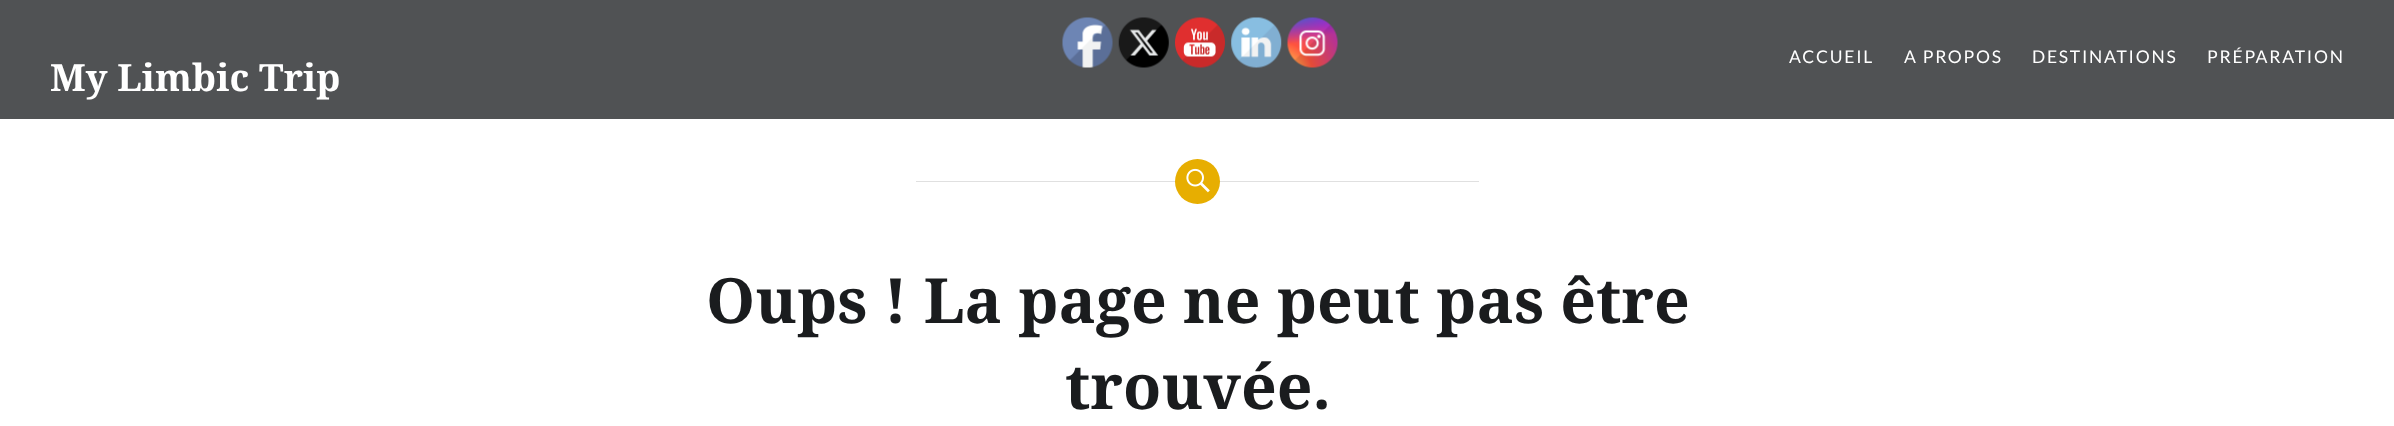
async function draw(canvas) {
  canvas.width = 2394;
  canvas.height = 426;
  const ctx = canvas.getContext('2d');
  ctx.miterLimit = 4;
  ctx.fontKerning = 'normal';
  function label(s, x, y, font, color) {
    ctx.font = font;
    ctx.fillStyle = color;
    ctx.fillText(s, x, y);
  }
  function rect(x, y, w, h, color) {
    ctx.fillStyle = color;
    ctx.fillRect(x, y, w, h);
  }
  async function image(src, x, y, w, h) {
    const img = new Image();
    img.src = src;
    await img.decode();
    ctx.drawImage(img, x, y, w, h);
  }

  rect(0, 0, 2394, 426, '#fff');
  rect(0, 0, 2394, 119, '#505254');
  await image('assets/img1.png', 1062, 17, 51, 51);
  await image('assets/img2.png', 1118, 17, 51, 51);
  await image('assets/img3.png', 1175, 17, 50, 51);
  await image('assets/img4.png', 1231, 17, 51, 51);
  await image('assets/img5.png', 1287, 17, 51, 51);
  ctx.letterSpacing = '1.75px';
  label('ACCUEIL', 1789, 63, '17.5px Lato', '#fff');
  label('A PROPOS', 1904, 63, '17.5px Lato', '#fff');
  label('DESTINATIONS', 2032, 63, '17.5px Lato', '#fff');
  label('PRÉPARATION', 2207, 63, '17.5px Lato', '#fff');
  ctx.letterSpacing = '0px';
  label('My Limbic Trip', 50, 91, 'bold 37.5px Noto Serif', '#fff');
  rect(916, 181, 563, 1, '#e0e0e0');
  ctx.fillStyle = '#e7ae01';
  ctx.beginPath();
  ctx.arc(1197.5, 181.5, 22.5, 0, 2 * Math.PI);
  ctx.fill();
  await image('assets/img6.png', 1186, 168, 24, 25);
  label('Oups ! La page ne peut pas être', 706, 323, 'bold 62.5px Noto Serif', '#1a1c1e');
  label('trouvée.', 1065, 409, 'bold 62.5px Noto Serif', '#1a1c1e');
}

draw(document.querySelector('canvas'));
